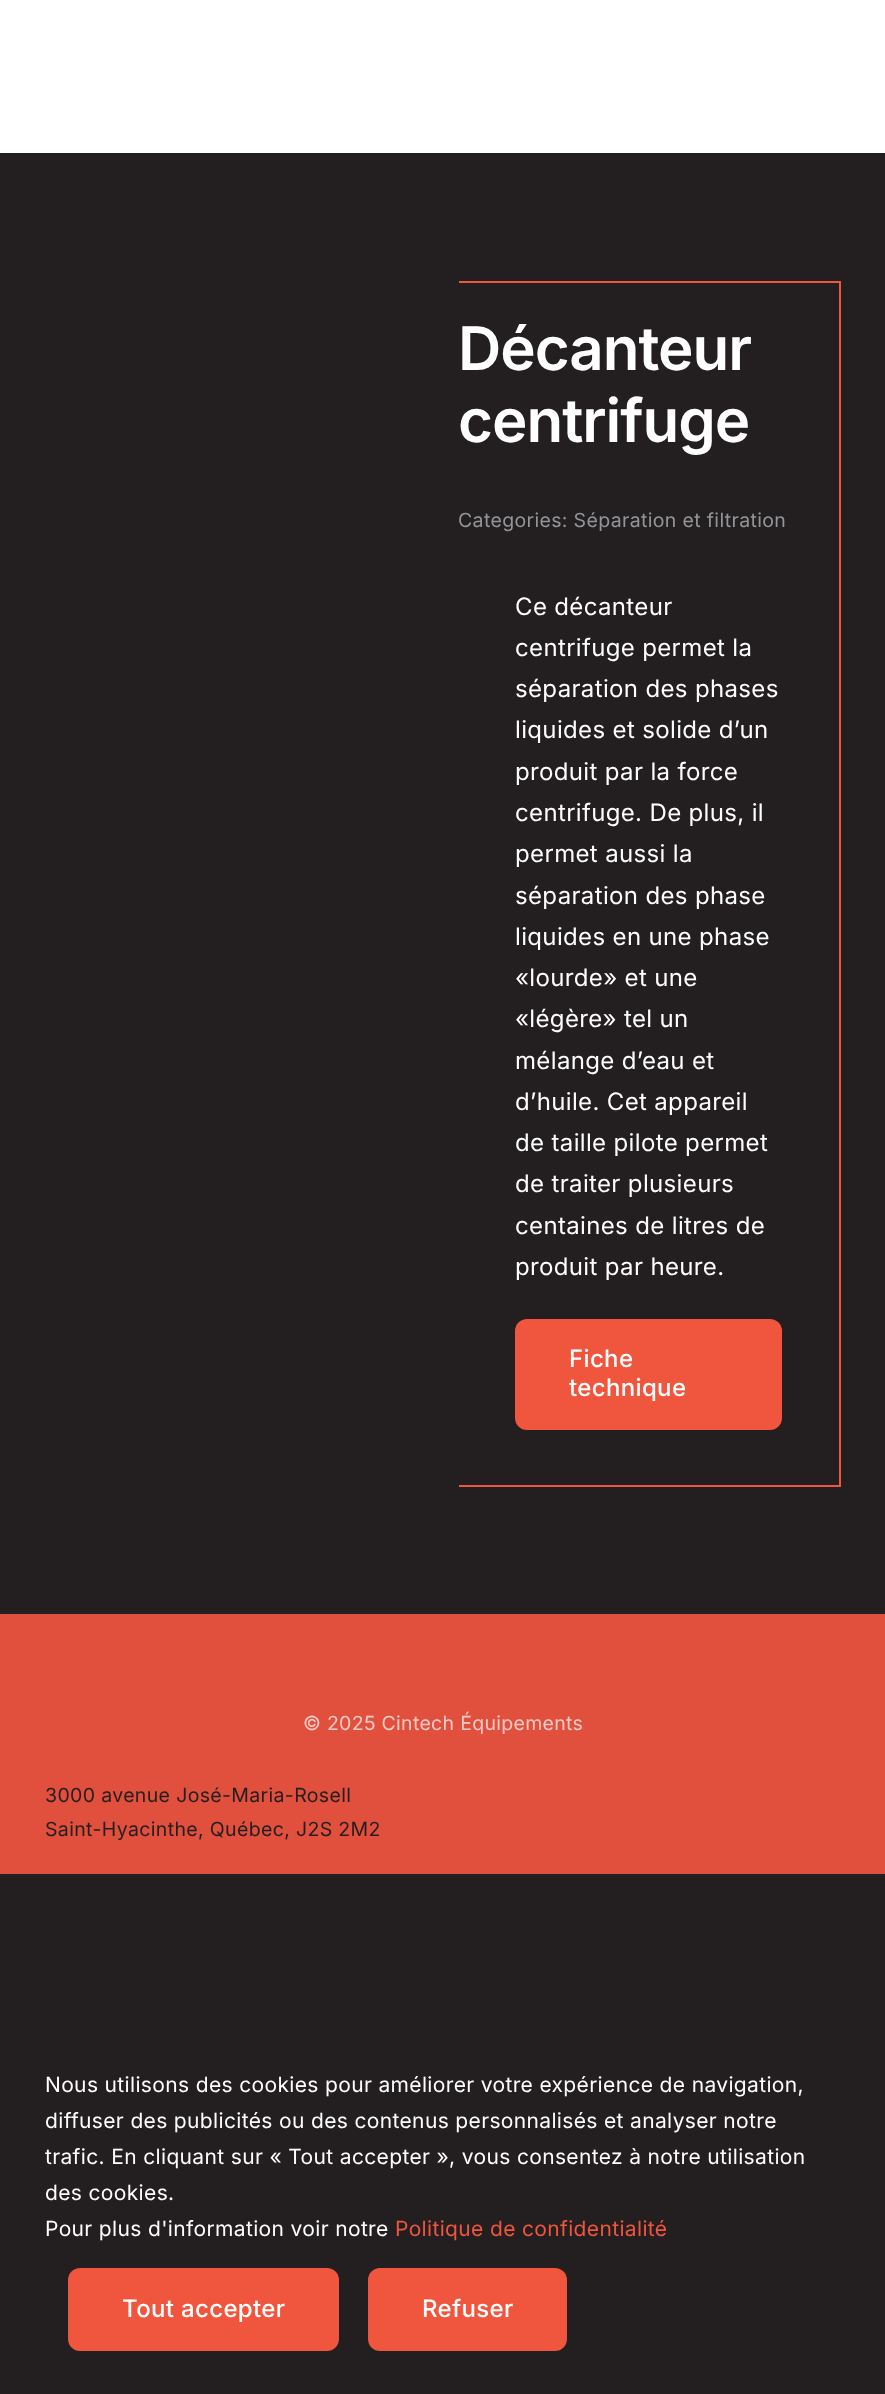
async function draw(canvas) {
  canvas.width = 885;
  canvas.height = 2394;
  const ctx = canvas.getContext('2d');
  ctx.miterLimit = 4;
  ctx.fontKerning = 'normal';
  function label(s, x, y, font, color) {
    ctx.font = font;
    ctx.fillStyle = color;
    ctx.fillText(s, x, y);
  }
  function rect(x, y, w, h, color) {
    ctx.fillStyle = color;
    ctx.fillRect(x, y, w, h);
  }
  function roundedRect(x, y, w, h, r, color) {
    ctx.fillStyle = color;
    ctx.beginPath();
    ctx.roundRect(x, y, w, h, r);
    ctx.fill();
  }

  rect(0, 0, 885, 2394, '#fff');
  rect(0, 153, 885, 1461, '#231f20');
  rect(459, 281, 381, 2, '#f0553d');
  rect(839, 281, 2, 1206, '#f0553d');
  rect(459, 1485, 381, 2, '#f0553d');
  ctx.letterSpacing = '-1px';
  label('Décanteur', 458, 370, '600 60px Inter', '#fff');
  label('centrifuge', 458, 442, '600 60px Inter', '#fff');
  ctx.letterSpacing = '0.35px';
  label('Categories: Séparation et filtration', 458, 527, '19.5px Inter', '#939598');
  label('Ce décanteur', 515, 615, '24px Inter', '#fff');
  label('centrifuge permet la', 515, 656, '24px Inter', '#fff');
  label('séparation des phases', 515, 697, '24px Inter', '#fff');
  label('liquides et solide d’un', 515, 738, '24px Inter', '#fff');
  label('produit par la force', 515, 780, '24px Inter', '#fff');
  label('centrifuge. De plus, il', 515, 821, '24px Inter', '#fff');
  label('permet aussi la', 515, 862, '24px Inter', '#fff');
  label('séparation des phase', 515, 904, '24px Inter', '#fff');
  label('liquides en une phase', 515, 945, '24px Inter', '#fff');
  label('«lourde» et une', 515, 986, '24px Inter', '#fff');
  label('«légère» tel un', 515, 1027, '24px Inter', '#fff');
  label('mélange d’eau et', 515, 1069, '24px Inter', '#fff');
  label('d’huile. Cet appareil', 515, 1110, '24px Inter', '#fff');
  label('de taille pilote permet', 515, 1151, '24px Inter', '#fff');
  label('de traiter plusieurs', 515, 1192, '24px Inter', '#fff');
  label('centaines de litres de', 515, 1234, '24px Inter', '#fff');
  label('produit par heure.', 515, 1275, '24px Inter', '#fff');
  roundedRect(515, 1319, 267, 111, 12, '#f0553d');
  label('Fiche', 569, 1367, '500 24px Inter', '#fff');
  label('technique', 569, 1396, '500 24px Inter', '#fff');
  rect(0, 1614, 885, 260, '#e14f3d');
  ctx.letterSpacing = '0.3px';
  label('© 2025 Cintech Équipements', 303, 1730, '19.5px Inter', '#f6cac5');
  ctx.letterSpacing = '0.35px';
  label('3000 avenue José-Maria-Rosell', 45, 1802, '19.5px Inter', '#231f20');
  label('Saint-Hyacinthe, Québec, J2S 2M2', 45, 1836, '19.5px Inter', '#231f20');
  rect(0, 1874, 885, 520, '#231f20');
  label('Nous utilisons des cookies pour améliorer votre expérience de navigation,', 45, 2092, '21px Inter', '#fff');
  label('diffuser des publicités ou des contenus personnalisés et analyser notre', 45, 2128, '21px Inter', '#fff');
  label('trafic. En cliquant sur « Tout accepter », vous consentez à notre utilisation', 45, 2164, '21px Inter', '#fff');
  label('des cookies.', 45, 2200, '21px Inter', '#fff');
  label('Pour plus d\'information voir notre', 45, 2236, '21px Inter', '#fff');
  label('Politique de confidentialité', 395, 2236, '21px Inter', '#f0553d');
  roundedRect(68, 2268, 271, 83, 12, '#f0553d');
  label('Tout accepter', 122, 2317, '500 24px Inter', '#fff');
  roundedRect(368, 2268, 199, 83, 12, '#f0553d');
  label('Refuser', 422, 2317, '500 24px Inter', '#fff');
}

draw(document.querySelector('canvas'));
